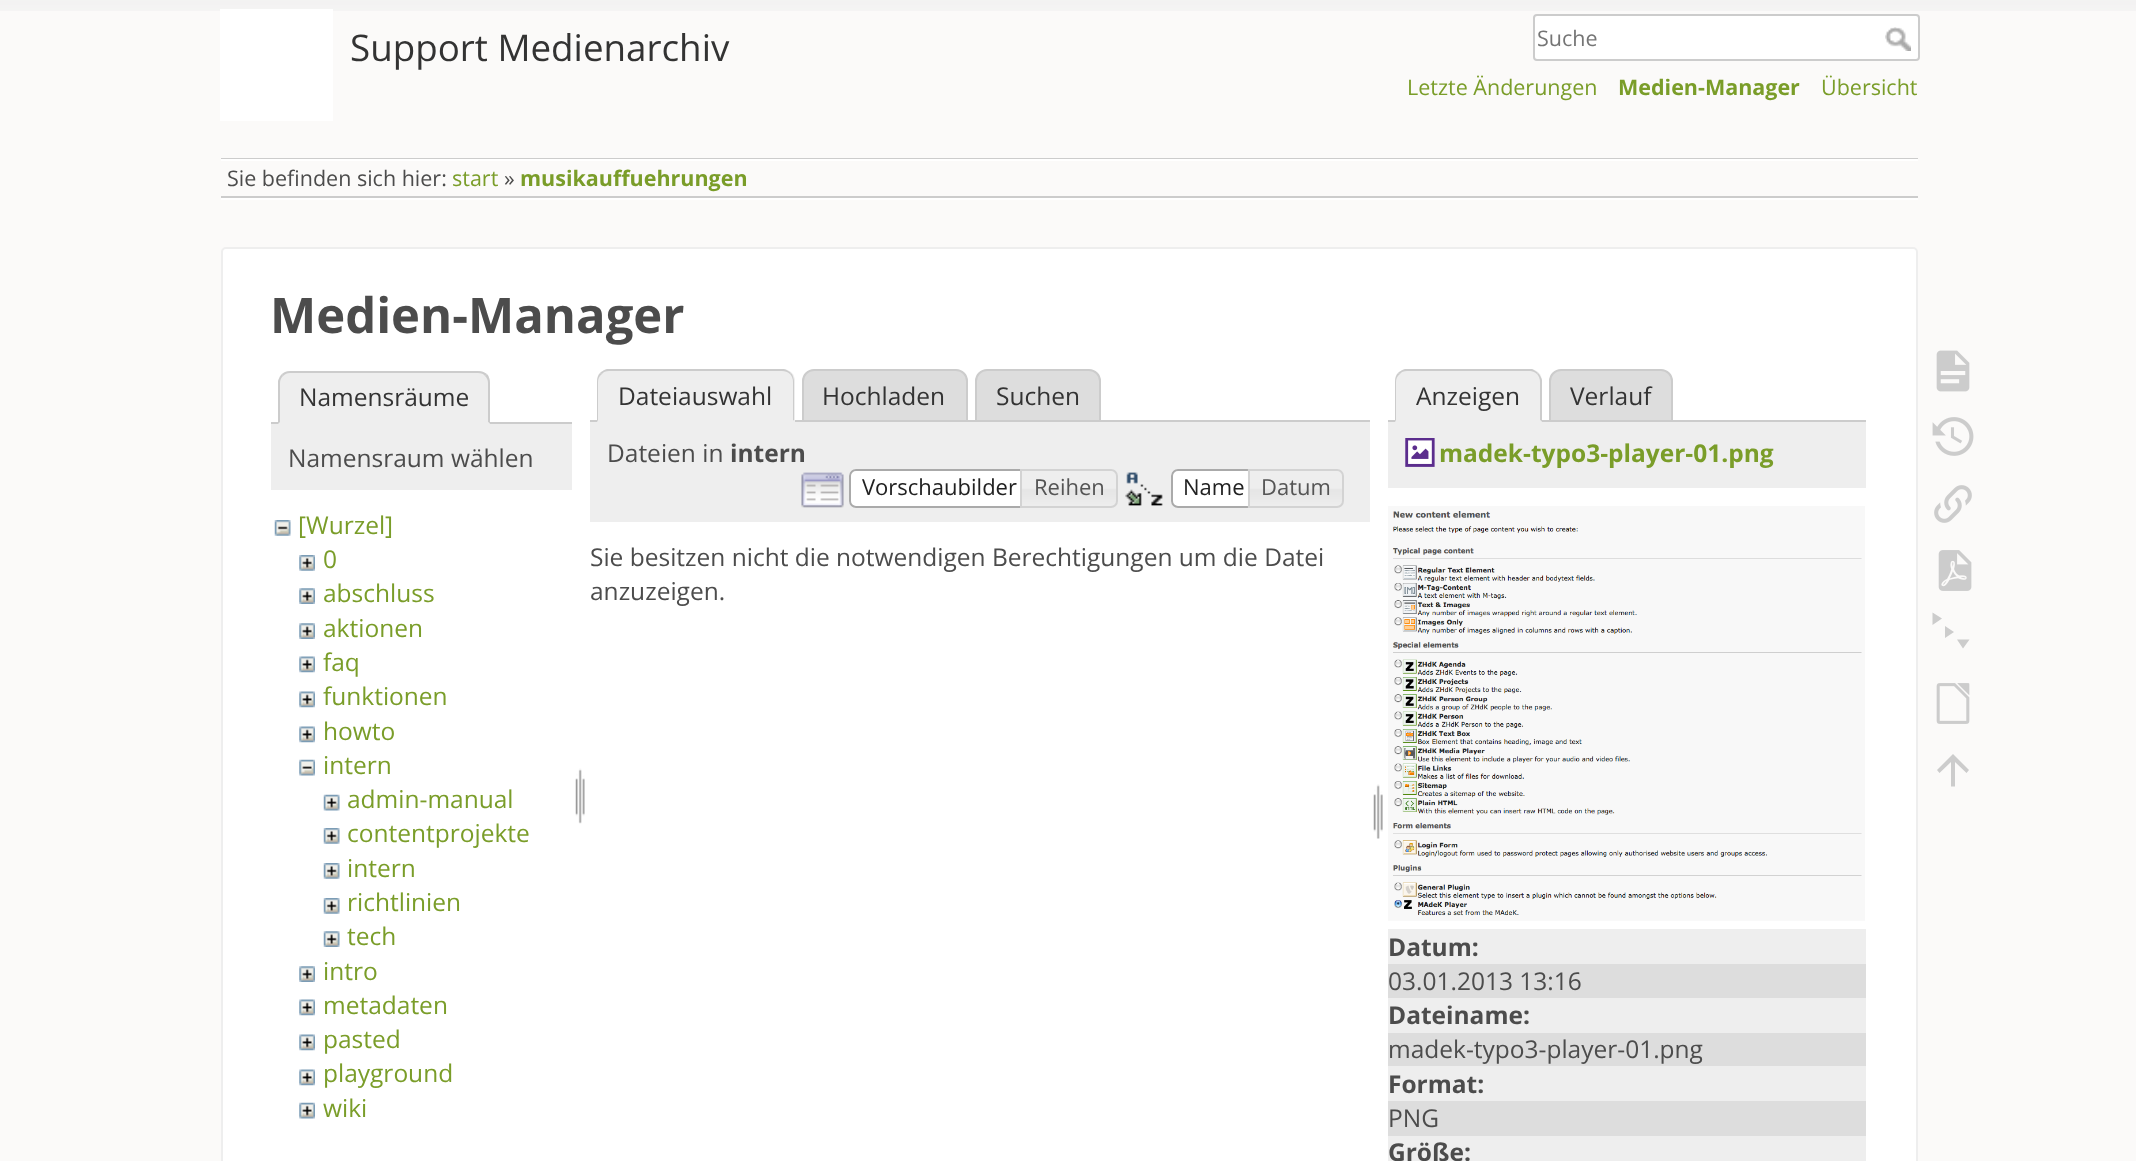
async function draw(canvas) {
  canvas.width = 2136;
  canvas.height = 1161;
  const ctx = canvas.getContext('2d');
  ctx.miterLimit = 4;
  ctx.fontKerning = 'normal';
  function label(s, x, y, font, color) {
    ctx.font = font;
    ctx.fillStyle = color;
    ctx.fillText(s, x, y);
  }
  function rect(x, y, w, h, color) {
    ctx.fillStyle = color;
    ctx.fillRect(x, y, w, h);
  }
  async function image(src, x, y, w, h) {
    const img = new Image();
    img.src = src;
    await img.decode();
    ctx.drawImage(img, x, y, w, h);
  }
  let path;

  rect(0, 0, 2136, 1161, '#fbfaf9');
  await image('assets/img1.png', 0, 0, 2136, 11);
  rect(220, 9, 113, 112, '#fff');
  label('Support Medienarchiv', 350, 61, '36.75px Open Sans', '#333');
  ctx.fillStyle = '#fff';
  ctx.beginPath();
  ctx.roundRect(1534, 15, 385, 45, 3);
  ctx.fill();
  ctx.strokeStyle = '#ccc';
  ctx.lineWidth = 2;
  ctx.stroke();
  label('Suche', 1537, 46, '21.5px Open Sans', '#757575');
  await image('assets/img2.png', 1885, 27, 26, 24);
  label('Letzte Änderungen', 1407, 95, '21.5px Open Sans', '#7a9d29');
  label('Medien-Manager', 1618, 95, 'bold 21.5px Open Sans', '#7a9d29');
  label('Übersicht', 1821, 95, '21.5px Open Sans', '#7a9d29');
  rect(221, 158, 1697, 1, '#ccc');
  rect(221, 198, 1697, 2, '#fff');
  rect(221, 159, 1697, 2, '#fff');
  rect(221, 196, 1697, 2, '#ccc');
  label('Sie befinden sich hier:', 227, 186, '21.5px Open Sans', '#4c4c4c');
  label('start', 452, 186, '21.5px Open Sans', '#7a9d29');
  label('»', 504, 186, '21.5px Open Sans', '#4c4c4c');
  label('musikauffuehrungen', 520, 186, 'bold 21.5px Open Sans', '#7a9d29');
  ctx.fillStyle = '#fff';
  ctx.beginPath();
  ctx.roundRect(222, 248, 1695, 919, 4);
  ctx.fill();
  ctx.strokeStyle = '#eee';
  ctx.stroke();
  label('Medien-Manager', 270, 333, 'bold 49px Open Sans', '#4c4c4c');
  rect(271, 422, 301, 2, '#ccc');
  ctx.fillStyle = '#eee';
  ctx.beginPath();
  ctx.roundRect(278, 371, 212, 53, [12, 12, 0, 0]);
  ctx.fill();
  ctx.fillStyle = '#ccc';
  path = new Path2D('M290 371C287 371 284 372 282 374L283 376C285 374 287 373 290 373H478C481 373 484 374 485 376L487 374C484 372 482 371 478 371Z');
  ctx.fill(path);
  path = new Path2D('M490 424V383C490 380 489 376 487 374L485 376C487 378 488 380 488 383V422Z');
  ctx.fill(path);
  ctx.fillStyle = '#eee';
  path = new Path2D('M490 424L488 422H280L278 424Z');
  ctx.fill(path);
  ctx.fillStyle = '#ccc';
  path = new Path2D('M278 424V381C279 378 280 376 282 374L283 376C281 378 280 380 280 383V422Z');
  ctx.fill(path);
  label('Namensräume', 299, 406, '24.5px Open Sans', '#333');
  rect(271, 424, 301, 66, '#eee');
  label('Namensraum wählen', 288, 467, '24.5px Open Sans', '#4c4c4c');
  await image('assets/img3.png', 274, 520, 17, 16);
  label('[Wurzel]', 298, 534, '24.5px Open Sans', '#7a9d29');
  await image('assets/img4.png', 299, 555, 16, 16);
  label('0', 323, 568, '24.5px Open Sans', '#7a9d29');
  await image('assets/img5.png', 299, 588, 16, 16);
  label('abschluss', 323, 602, '24.5px Open Sans', '#7a9d29');
  await image('assets/img5.png', 299, 623, 16, 16);
  label('aktionen', 323, 637, '24.5px Open Sans', '#7a9d29');
  await image('assets/img6.png', 299, 656, 16, 17);
  label('faq', 323, 671, '24.5px Open Sans', '#7a9d29');
  await image('assets/img6.png', 299, 691, 16, 17);
  label('funktionen', 323, 705, '24.5px Open Sans', '#7a9d29');
  await image('assets/img6.png', 299, 726, 16, 17);
  label('howto', 323, 740, '24.5px Open Sans', '#7a9d29');
  await image('assets/img7.png', 299, 759, 16, 17);
  label('intern', 323, 774, '24.5px Open Sans', '#7a9d29');
  await image('assets/img8.png', 323, 794, 17, 17);
  label('admin-manual', 347, 808, '24.5px Open Sans', '#7a9d29');
  await image('assets/img9.png', 323, 828, 17, 16);
  label('contentprojekte', 347, 842, '24.5px Open Sans', '#7a9d29');
  await image('assets/img9.png', 323, 863, 17, 16);
  label('intern', 347, 877, '24.5px Open Sans', '#7a9d29');
  await image('assets/img9.png', 323, 898, 17, 16);
  label('richtlinien', 347, 911, '24.5px Open Sans', '#7a9d29');
  await image('assets/img10.png', 323, 931, 17, 16);
  label('tech', 347, 945, '24.5px Open Sans', '#7a9d29');
  await image('assets/img5.png', 299, 966, 16, 16);
  label('intro', 323, 980, '24.5px Open Sans', '#7a9d29');
  await image('assets/img6.png', 299, 999, 16, 17);
  label('metadaten', 323, 1014, '24.5px Open Sans', '#7a9d29');
  await image('assets/img6.png', 299, 1034, 16, 17);
  label('pasted', 323, 1048, '24.5px Open Sans', '#7a9d29');
  await image('assets/img6.png', 299, 1069, 16, 17);
  label('playground', 323, 1082, '24.5px Open Sans', '#7a9d29');
  await image('assets/img11.png', 299, 1102, 16, 17);
  label('wiki', 323, 1117, '24.5px Open Sans', '#7a9d29');
  await image('assets/img12.png', 575, 768, 10, 56);
  ctx.fillStyle = '#ddd';
  ctx.beginPath();
  ctx.roundRect(803, 370, 164, 51, [11, 11, 0, 0]);
  ctx.fill();
  ctx.strokeStyle = '#ccc';
  ctx.stroke();
  ctx.beginPath();
  ctx.roundRect(976, 370, 124, 51, [11, 11, 0, 0]);
  ctx.fill();
  ctx.stroke();
  rect(590, 420, 780, 2, '#ccc');
  ctx.fillStyle = '#eee';
  ctx.beginPath();
  ctx.roundRect(597, 369, 198, 53, [12, 12, 0, 0]);
  ctx.fill();
  ctx.fillStyle = '#ccc';
  path = new Path2D('M609 371C606 371 603 372 602 374L600 373C602 371 604 370 607 369H784C787 370 789 371 791 373L790 374C788 372 785 371 782 371Z');
  ctx.fill(path);
  path = new Path2D('M791 373C793 375 794 379 794 382V421L793 420V382C793 379 792 376 790 374Z');
  ctx.fill(path);
  ctx.fillStyle = '#eee';
  path = new Path2D('M597 422L598 420H793L794 421V422Z');
  ctx.fill(path);
  ctx.fillStyle = '#ccc';
  path = new Path2D('M597 422V382C597 378 598 375 600 373L602 374C599 376 598 379 598 382V420Z');
  ctx.fill(path);
  label('Dateiauswahl', 618, 405, '24.5px Open Sans', '#333');
  label('Hochladen', 822, 405, '24.5px Open Sans', '#333');
  label('Suchen', 996, 405, '24.5px Open Sans', '#333');
  rect(590, 422, 780, 100, '#eee');
  label('Dateien in', 607, 462, '24.5px Open Sans', '#4c4c4c');
  label('intern', 730, 462, 'bold 24.5px Open Sans', '#4c4c4c');
  await image('assets/img13.png', 801, 472, 43, 36);
  ctx.fillStyle = '#fff';
  ctx.beginPath();
  ctx.roundRect(849, 469, 180, 39, [7, 0, 0, 7]);
  ctx.fill();
  await image('assets/img14.png', 849, 471, 2, 33);
  ctx.beginPath();
  ctx.roundRect(850, 470, 178, 37, [6, 0, 0, 6]);
  ctx.strokeStyle = '#aaa';
  ctx.stroke();
  label('Vorschaubilder', 862, 495, '22px Open Sans', '#212121');
  await image('assets/img15.png', 1022, 469, 96, 39);
  ctx.beginPath();
  ctx.roundRect(1021, 470, 96, 37, [0, 6, 6, 0]);
  ctx.strokeStyle = '#d3d3d3';
  ctx.stroke();
  label('Reihen', 1034, 495, '22px Open Sans', '#555');
  await image('assets/img16.png', 1125, 472, 38, 34);
  ctx.fillStyle = '#fff';
  ctx.beginPath();
  ctx.roundRect(1171, 469, 86, 39, [7, 0, 0, 7]);
  ctx.fill();
  await image('assets/img14.png', 1171, 471, 2, 33);
  ctx.beginPath();
  ctx.roundRect(1172, 470, 84, 37, [6, 0, 0, 6]);
  ctx.strokeStyle = '#aaa';
  ctx.stroke();
  label('Name', 1183, 495, '22px Open Sans', '#212121');
  await image('assets/img17.png', 1247, 469, 97, 39);
  ctx.beginPath();
  ctx.roundRect(1249, 470, 94, 37, [0, 6, 6, 0]);
  ctx.strokeStyle = '#d3d3d3';
  ctx.stroke();
  label('Datum', 1261, 495, '22px Open Sans', '#555');
  label('Sie besitzen nicht die notwendigen Berechtigungen um die Datei', 590, 566, '24.5px Open Sans', '#4c4c4c');
  label('anzuzeigen.', 590, 600, '24.5px Open Sans', '#4c4c4c');
  await image('assets/img18.png', 1373, 784, 10, 55);
  ctx.fillStyle = '#ddd';
  ctx.beginPath();
  ctx.roundRect(1550, 370, 122, 51, [11, 11, 0, 0]);
  ctx.fill();
  ctx.strokeStyle = '#ccc';
  ctx.stroke();
  rect(1388, 420, 478, 2, '#ccc');
  ctx.fillStyle = '#eee';
  ctx.beginPath();
  ctx.roundRect(1395, 369, 147, 53, [12, 12, 0, 0]);
  ctx.fill();
  ctx.fillStyle = '#ccc';
  path = new Path2D('M1407 371C1404 371 1401 372 1400 374L1398 373C1400 371 1402 370 1405 369H1532C1534 370 1536 371 1538 373L1537 374C1535 372 1532 371 1530 371Z');
  ctx.fill(path);
  path = new Path2D('M1538 373C1540 375 1541 377 1542 380V422L1540 420V382C1540 379 1539 376 1537 374Z');
  ctx.fill(path);
  ctx.fillStyle = '#eee';
  path = new Path2D('M1542 422H1395L1396 420H1540Z');
  ctx.fill(path);
  ctx.fillStyle = '#ccc';
  path = new Path2D('M1395 422V382C1395 378 1396 375 1398 373L1400 374C1397 376 1396 379 1396 382V420Z');
  ctx.fill(path);
  label('Anzeigen', 1416, 405, '24.5px Open Sans', '#333');
  label('Verlauf', 1570, 405, '24.5px Open Sans', '#333');
  rect(1388, 422, 478, 66, '#eee');
  await image('assets/img19.png', 1405, 438, 30, 29);
  label('madek-typo3-player-01.png', 1439, 462, 'bold 24.5px Open Sans', '#7a9d29');
  await image('assets/img20.png', 1388, 506, 477, 415);
  rect(1388, 929, 478, 35, '#eee');
  label('Datum:', 1388, 956, 'bold 24.5px Open Sans', '#4c4c4c');
  rect(1388, 964, 478, 34, '#ddd');
  label('03.01.2013 13:16', 1388, 990, '24.5px Open Sans', '#4c4c4c');
  rect(1388, 998, 478, 35, '#eee');
  label('Dateiname:', 1388, 1024, 'bold 24.5px Open Sans', '#4c4c4c');
  rect(1388, 1033, 478, 33, '#ddd');
  label('madek-typo3-player-01.png', 1388, 1058, '24.5px Open Sans', '#4c4c4c');
  rect(1388, 1066, 478, 35, '#eee');
  label('Format:', 1388, 1093, 'bold 24.5px Open Sans', '#4c4c4c');
  rect(1388, 1101, 478, 35, '#ddd');
  label('PNG', 1388, 1127, '24.5px Open Sans', '#4c4c4c');
  rect(1388, 1136, 478, 25, '#eee');
  label('Größe:', 1388, 1161, 'bold 24.5px Open Sans', '#4c4c4c');
  await image('assets/img21.png', 1936, 350, 34, 42);
  await image('assets/img22.png', 1932, 417, 42, 39);
  await image('assets/img23.png', 1934, 485, 38, 38);
  await image('assets/img24.png', 1938, 550, 34, 41);
  ctx.fillStyle = '#ccc';
  path = new Path2D('M1932.5 612.5L1942 618.5L1932.5 625ZM1945 626L1954 632L1945 638ZM1957 639.5H1969.5L1963 648.5Z');
  ctx.fill(path);
  await image('assets/img25.png', 1936, 683, 34, 41);
  path = new Path2D('M1955 786.5H1951V762L1939.5 773L1937 770L1953 754L1969 770L1966.5 773L1955 762Z');
  ctx.fill(path);
}

draw(document.querySelector('canvas'));
